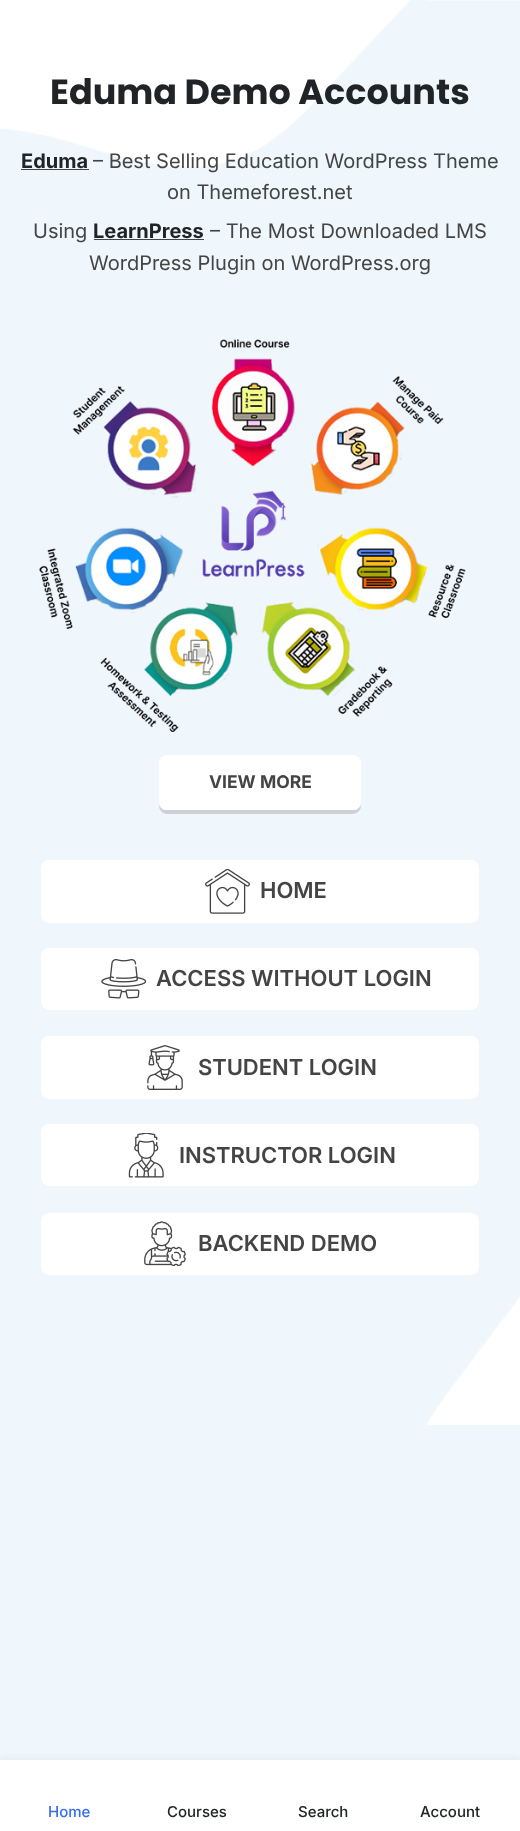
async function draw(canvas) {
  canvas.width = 520;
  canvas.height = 1831;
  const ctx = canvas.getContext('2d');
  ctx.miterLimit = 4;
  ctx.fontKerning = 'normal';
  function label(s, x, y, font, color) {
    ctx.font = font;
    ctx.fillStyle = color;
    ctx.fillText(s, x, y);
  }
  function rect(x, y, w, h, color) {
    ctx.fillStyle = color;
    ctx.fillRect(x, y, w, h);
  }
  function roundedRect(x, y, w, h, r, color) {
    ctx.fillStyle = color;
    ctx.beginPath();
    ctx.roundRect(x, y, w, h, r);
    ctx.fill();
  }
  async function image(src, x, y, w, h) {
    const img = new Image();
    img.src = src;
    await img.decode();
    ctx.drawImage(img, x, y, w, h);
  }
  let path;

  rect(0, 0, 520, 1831, '#eff6fc');
  await image('assets/img1.png', 0, 0, 410, 168);
  await image('assets/img2.png', 426, 0, 94, 1425);
  label('Eduma Demo Accounts', 50, 104, 'bold 35px Poppins', '#212427');
  label('Eduma', 21, 168, 'bold 20px Inter', '#212427');
  rect(21, 169, 68, 1, '#444');
  label('– Best Selling Education WordPress Theme', 93, 168, '20px Inter', '#444');
  label('on Themeforest.net', 167, 199, '20px Inter', '#444');
  label('Using', 33, 238, '20px Inter', '#444');
  label('LearnPress', 93, 238, 'bold 20px Inter', '#212427');
  rect(94, 239, 110, 1, '#444');
  label('– The Most Downloaded LMS', 210, 238, '20px Inter', '#444');
  label('WordPress Plugin on WordPress.org', 89, 270, '20px Inter', '#444');
  await image('assets/img3.png', 39, 339, 427, 393);
  ctx.fillStyle = '#cbd1d6';
  path = new Path2D('M159 804V806C159 810 163 814 167 814H353C357 814 361 810 361 806V804C360 808 357 810 354 810H166C163 810 160 808 159 804Z');
  ctx.fill(path);
  roundedRect(159, 755, 202, 55, 8, '#fff');
  label('VIEW MORE', 209, 788, 'bold 17.5px Inter', '#444');
  roundedRect(41, 860, 438, 63, 8, '#fff');
  await image('assets/img4.png', 205, 869, 45, 45);
  label('HOME', 260, 898, '600 22px Inter', '#444');
  roundedRect(41, 948, 438, 62, 8, '#fff');
  await image('assets/img5.png', 101, 959, 45, 40);
  label('ACCESS WITHOUT LOGIN', 156, 986, '600 22px Inter', '#444');
  roundedRect(41, 1036, 438, 63, 8, '#fff');
  await image('assets/img6.png', 147, 1045, 36, 45);
  label('STUDENT LOGIN', 198, 1075, '600 22px Inter', '#444');
  roundedRect(41, 1124, 438, 62, 8, '#fff');
  await image('assets/img7.png', 128, 1133, 36, 45);
  label('INSTRUCTOR LOGIN', 179, 1163, '600 22px Inter', '#444');
  roundedRect(41, 1213, 438, 62, 8, '#fff');
  await image('assets/img8.png', 144, 1221, 42, 45);
  label('BACKEND DEMO', 198, 1251, '600 22px Inter', '#444');
  ctx.fillStyle = '#dcdcdc99';
  ctx.filter = 'blur(4px)';
  ctx.beginPath();
  ctx.rect(0, 1760, 520, 71);
  ctx.fill();
  ctx.filter = 'none';
  rect(0, 1760, 520, 71, '#fff');
  label('Home', 48, 1817, '500 15px Inter', '#356df1');
  label('Courses', 167, 1817, '500 15px Inter', '#212427');
  label('Search', 298, 1817, '500 15px Inter', '#212427');
  label('Account', 420, 1817, '500 15px Inter', '#212427');
}

draw(document.querySelector('canvas'));
